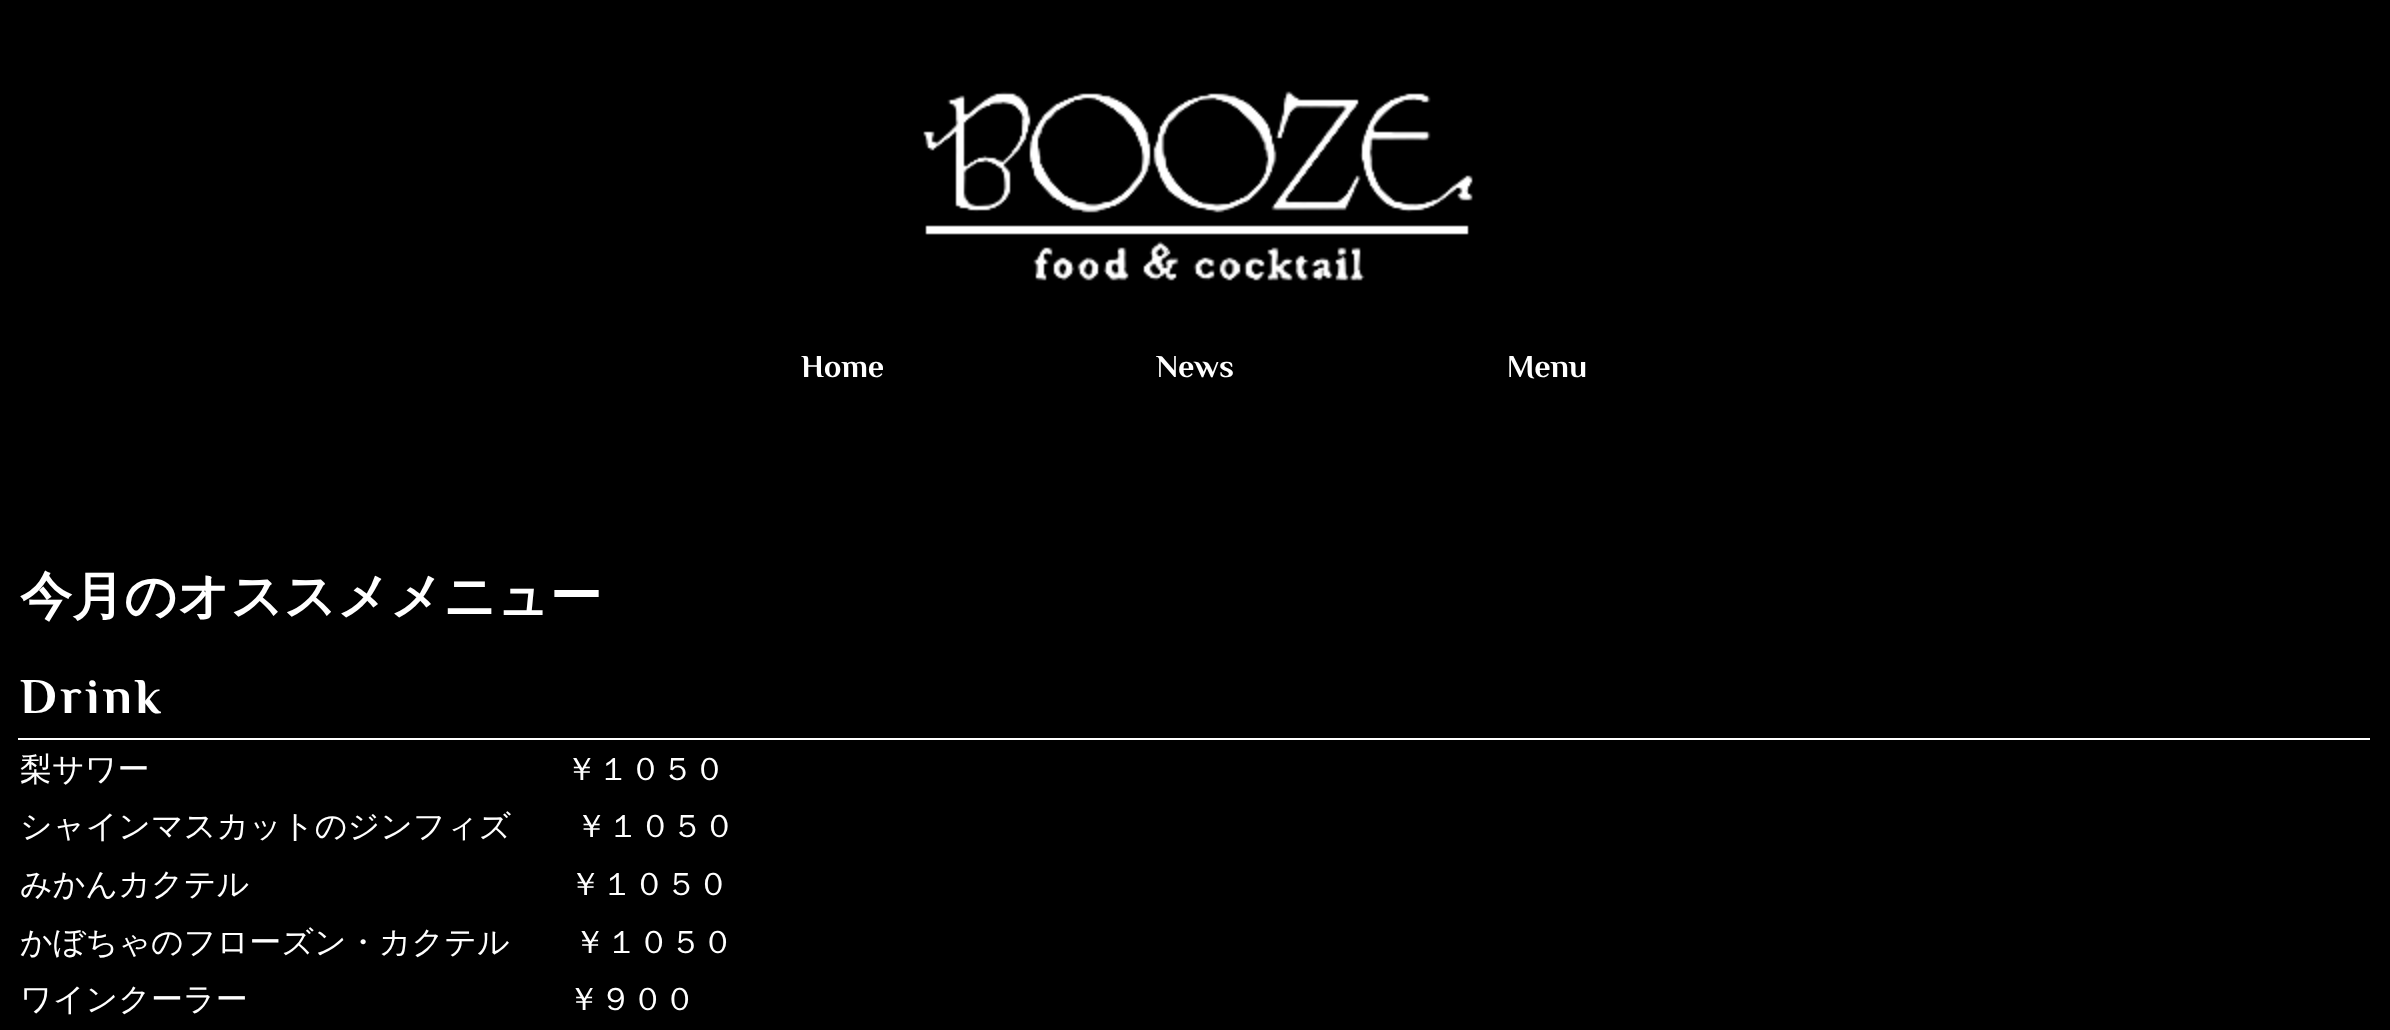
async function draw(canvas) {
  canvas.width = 2390;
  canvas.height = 1030;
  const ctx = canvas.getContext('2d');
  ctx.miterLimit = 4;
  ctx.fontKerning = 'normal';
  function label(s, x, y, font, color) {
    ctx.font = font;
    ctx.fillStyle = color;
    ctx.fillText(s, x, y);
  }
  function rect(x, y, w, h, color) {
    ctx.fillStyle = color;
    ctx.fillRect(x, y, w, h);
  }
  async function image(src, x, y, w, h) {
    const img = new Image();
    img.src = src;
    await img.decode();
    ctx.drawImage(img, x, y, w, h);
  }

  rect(0, 0, 2390, 1030, '#000');
  await image('assets/img1.png', 923, 91, 550, 190);
  label('Home', 801, 377, 'bold 32px Philosopher', '#fff');
  label('News', 1156, 377, 'bold 32px Philosopher', '#fff');
  label('Menu', 1507, 377, 'bold 32px Philosopher', '#fff');
  label('今月のオススメメニュー', 20, 614, 'bold 52px WenQuanYi Zen Hei', '#fff');
  rect(18, 738, 2352, 2, '#fff');
  ctx.letterSpacing = '4px';
  label('Drink', 20, 713, 'bold 50px Philosopher', '#fff');
  ctx.letterSpacing = '0px';
  label('梨サワー　　　　　　　　　　　　　￥１０５０', 20, 780, '500 32px WenQuanYi Zen Hei', '#fff');
  label('シャインマスカットのジンフィズ　　￥１０５０', 20, 837, '500 32px WenQuanYi Zen Hei', '#fff');
  label('みかんカクテル　　　　　　　　　　￥１０５０', 20, 895, '500 32px WenQuanYi Zen Hei', '#fff');
  label('かぼちゃのフローズン・カクテル　　￥１０５０', 20, 953, '500 32px WenQuanYi Zen Hei', '#fff');
  label('ワインクーラー　　　　　　　　　　￥９００', 20, 1010, '500 32px WenQuanYi Zen Hei', '#fff');
}

draw(document.querySelector('canvas'));
